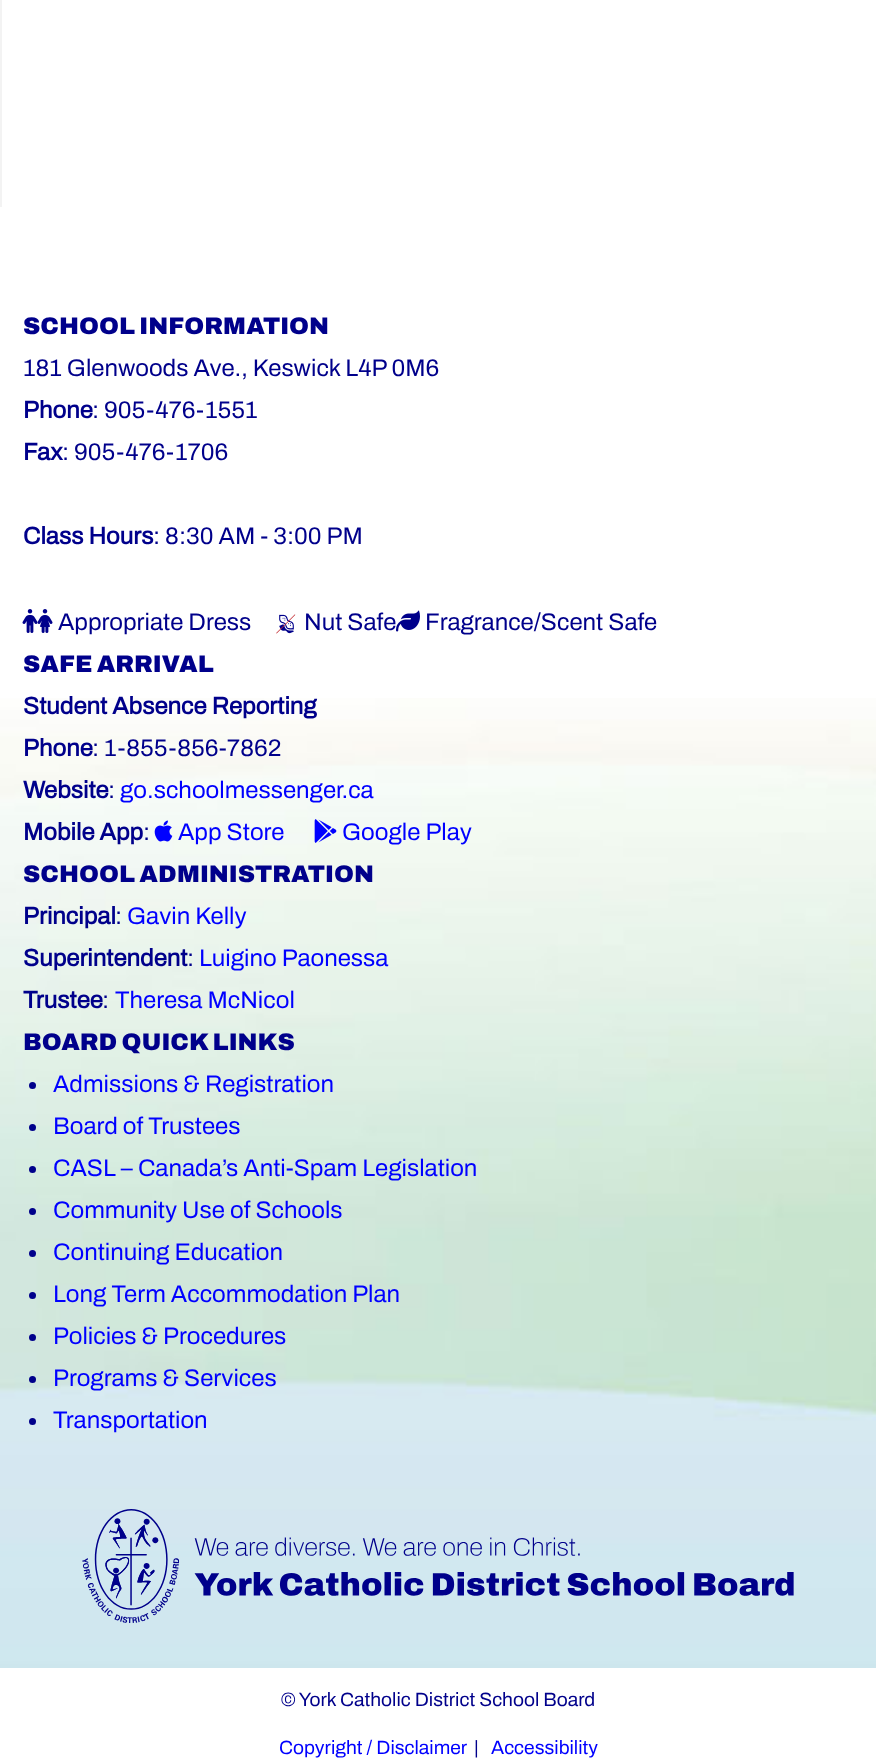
async function draw(canvas) {
  canvas.width = 876;
  canvas.height = 1761;
  const ctx = canvas.getContext('2d');
  ctx.miterLimit = 4;
  ctx.fontKerning = 'normal';
  function label(s, x, y, font, color) {
    ctx.font = font;
    ctx.fillStyle = color;
    ctx.fillText(s, x, y);
  }
  function rect(x, y, w, h, color) {
    ctx.fillStyle = color;
    ctx.fillRect(x, y, w, h);
  }
  async function image(src, x, y, w, h) {
    const img = new Image();
    img.src = src;
    await img.decode();
    ctx.drawImage(img, x, y, w, h);
  }

  rect(0, 0, 876, 1761, '#fff');
  rect(0, 0, 2, 207, '#f3f3f3');
  await image('assets/img1.png', 0, 698, 876, 970);
  label('SCHOOL INFORMATION', 23, 334, '900 24px Archivo', '#00008b');
  label('181 Glenwoods Ave., Keswick L4P 0M6', 23, 376, '24px Archivo', '#00008b');
  label('Phone', 23, 418, 'bold 24px Archivo', '#00008b');
  label(': 905-476-1551', 92, 418, '24px Archivo', '#00008b');
  label('Fax', 23, 460, 'bold 24px Archivo', '#00008b');
  label(': 905-476-1706', 62, 460, '24px Archivo', '#00008b');
  label('Class Hours', 23, 544, 'bold 24px Archivo', '#00008b');
  label(': 8:30 AM - 3:00 PM', 153, 544, '24px Archivo', '#00008b');
  await image('assets/img2.png', 22, 609, 16, 24);
  await image('assets/img3.png', 37, 609, 16, 24);
  label('Appropriate Dress', 58, 630, '24px Archivo', '#00008b');
  await image('assets/img4.png', 276, 614, 20, 20);
  label('Nut Safe', 304, 630, '24px Archivo', '#00008b');
  await image('assets/img5.png', 396, 610, 24, 22);
  label('Fragrance/Scent Safe', 425, 630, '24px Archivo', '#00008b');
  label('SAFE ARRIVAL', 23, 672, '900 24px Archivo', '#00008b');
  label('Student Absence Reporting', 23, 714, 'bold 24px Archivo', '#00008b');
  label('Phone', 23, 756, 'bold 24px Archivo', '#00008b');
  label(': 1-855-856-7862', 92, 756, '24px Archivo', '#00008b');
  label('Website', 23, 798, 'bold 24px Archivo', '#00008b');
  label(':', 108, 798, '24px Archivo', '#00008b');
  label('go.schoolmessenger.ca', 120, 798, '24px Archivo', '#00f');
  label('Mobile App', 23, 840, 'bold 24px Archivo', '#00008b');
  label(':', 143, 840, '24px Archivo', '#00008b');
  await image('assets/img6.png', 154, 820, 19, 22);
  label('App Store', 178, 840, '24px Archivo', '#00f');
  await image('assets/img7.png', 314, 819, 23, 24);
  label('Google Play', 342, 840, '24px Archivo', '#00f');
  label('SCHOOL ADMINISTRATION', 23, 882, '900 24px Archivo', '#00008b');
  label('Principal', 23, 924, 'bold 24px Archivo', '#00008b');
  label(':', 115, 924, '24px Archivo', '#00008b');
  label('Gavin Kelly', 127, 924, '24px Archivo', '#00f');
  label('Superintendent', 23, 966, 'bold 24px Archivo', '#00008b');
  label(':', 187, 966, '24px Archivo', '#00008b');
  label('Luigino Paonessa', 199, 966, '24px Archivo', '#00f');
  label('Trustee', 23, 1008, 'bold 24px Archivo', '#00008b');
  label(':', 102, 1008, '24px Archivo', '#00008b');
  label('Theresa McNicol', 115, 1008, '24px Archivo', '#00f');
  label('BOARD QUICK LINKS', 23, 1050, '900 24px Archivo', '#00008b');
  ctx.beginPath();
  ctx.arc(32.5, 1085.5, 3.5, 0, 2 * Math.PI);
  ctx.fill();
  label('Admissions & Registration', 53, 1092, '24px Archivo', '#00f');
  ctx.fillStyle = '#00008b';
  ctx.beginPath();
  ctx.arc(32.5, 1127.5, 3.5, 0, 2 * Math.PI);
  ctx.fill();
  label('Board of Trustees', 53, 1134, '24px Archivo', '#00f');
  ctx.fillStyle = '#00008b';
  ctx.beginPath();
  ctx.arc(32.5, 1169.5, 3.5, 0, 2 * Math.PI);
  ctx.fill();
  label('CASL – Canada’s Anti-Spam Legislation', 53, 1176, '24px Archivo', '#00f');
  ctx.fillStyle = '#00008b';
  ctx.beginPath();
  ctx.arc(32.5, 1211.5, 3.5, 0, 2 * Math.PI);
  ctx.fill();
  label('Community Use of Schools', 53, 1218, '24px Archivo', '#00f');
  ctx.fillStyle = '#00008b';
  ctx.beginPath();
  ctx.arc(32.5, 1253.5, 3.5, 0, 2 * Math.PI);
  ctx.fill();
  label('Continuing Education', 53, 1260, '24px Archivo', '#00f');
  ctx.fillStyle = '#00008b';
  ctx.beginPath();
  ctx.arc(32.5, 1295.5, 3.5, 0, 2 * Math.PI);
  ctx.fill();
  label('Long Term Accommodation Plan', 53, 1302, '24px Archivo', '#00f');
  ctx.fillStyle = '#00008b';
  ctx.beginPath();
  ctx.arc(32.5, 1337.5, 3.5, 0, 2 * Math.PI);
  ctx.fill();
  label('Policies & Procedures', 53, 1344, '24px Archivo', '#00f');
  ctx.fillStyle = '#00008b';
  ctx.beginPath();
  ctx.arc(32.5, 1379.5, 3.5, 0, 2 * Math.PI);
  ctx.fill();
  label('Programs & Services', 53, 1386, '24px Archivo', '#00f');
  ctx.fillStyle = '#00008b';
  ctx.beginPath();
  ctx.arc(32.5, 1421.5, 3.5, 0, 2 * Math.PI);
  ctx.fill();
  label('Transportation', 53, 1428, '24px Archivo', '#00f');
  await image('assets/img8.png', 82, 1509, 712, 114);
  label('© York Catholic District School Board', 281, 1706, '19.25px Archivo', '#00008b');
  label('Copyright / Disclaimer', 279, 1754, '19.25px Archivo', '#00f');
  label('|', 474, 1754, '19.25px Archivo', '#00008b');
  label('Accessibility', 491, 1754, '19.25px Archivo', '#00f');
}

draw(document.querySelector('canvas'));
